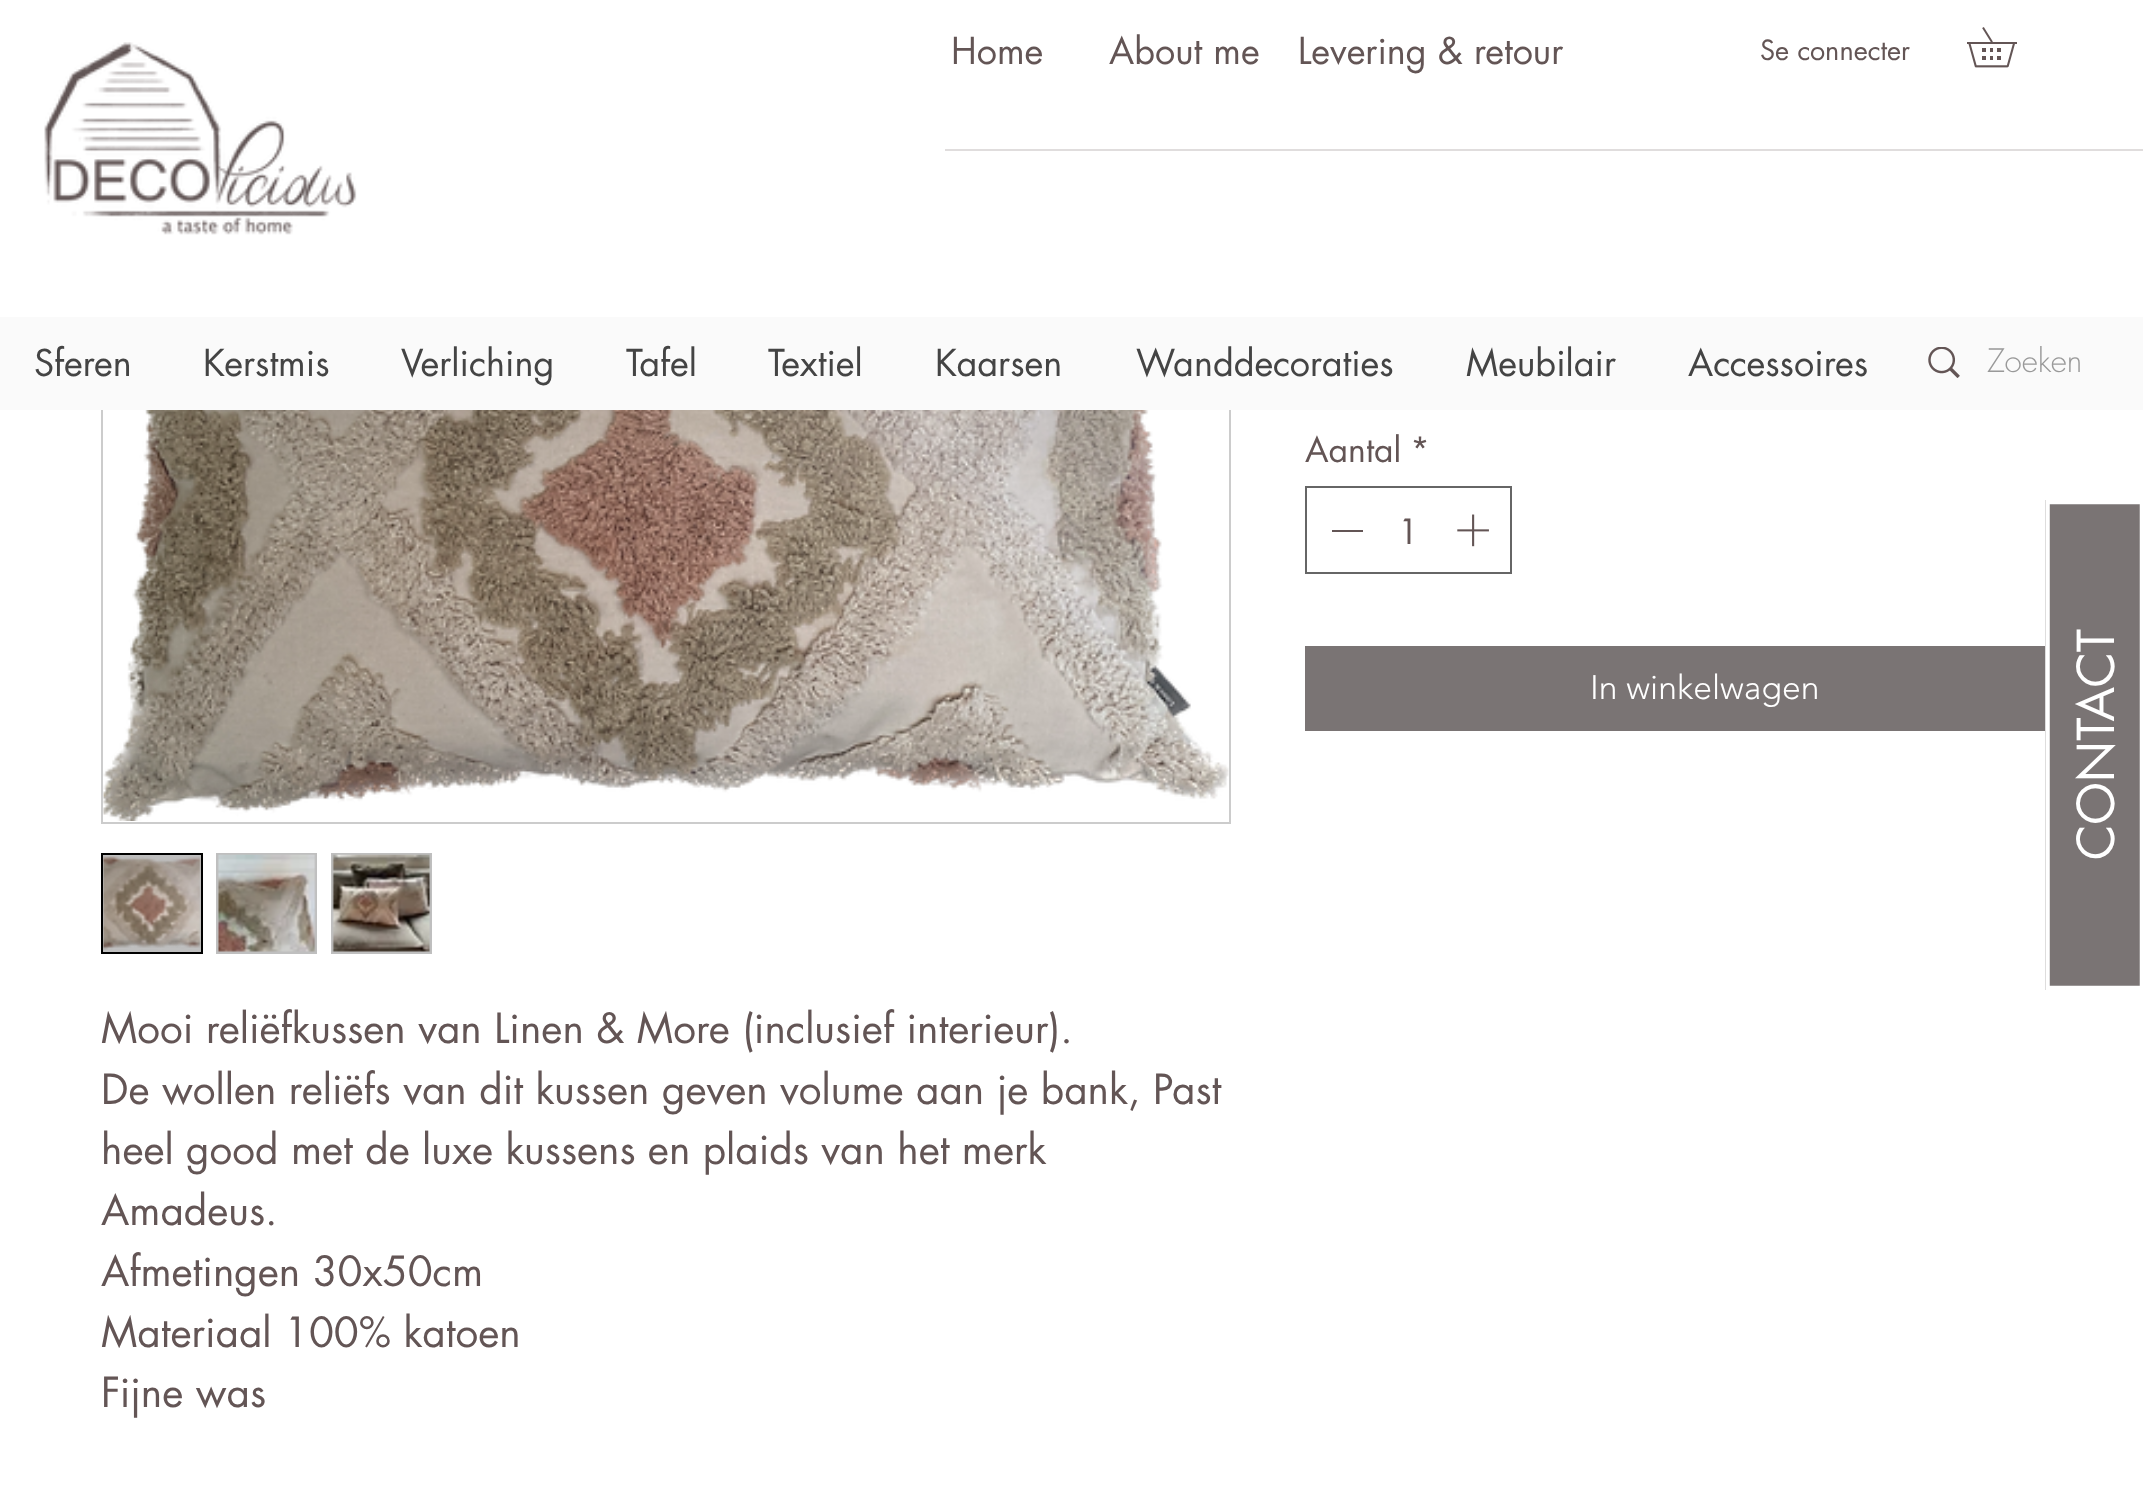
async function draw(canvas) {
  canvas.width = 2143;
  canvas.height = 1489;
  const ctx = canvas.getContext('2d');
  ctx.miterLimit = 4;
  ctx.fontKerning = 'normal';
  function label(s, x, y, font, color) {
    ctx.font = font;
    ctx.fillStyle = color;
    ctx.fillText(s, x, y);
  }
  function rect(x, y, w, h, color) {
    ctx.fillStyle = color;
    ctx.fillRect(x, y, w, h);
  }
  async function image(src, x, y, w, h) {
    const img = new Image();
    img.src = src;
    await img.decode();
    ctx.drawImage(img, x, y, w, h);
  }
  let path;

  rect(0, 0, 2143, 1489, '#fff');
  ctx.strokeStyle = '#ccc';
  ctx.lineWidth = 2;
  ctx.strokeRect(102, 172, 1128, 651);
  rect(101, 171, 1130, 146, '#fff');
  await image('assets/img1.png', 44, 42, 313, 193);
  label('Home', 951, 64, '36px futura', '#635555');
  label('About me', 1109, 64, '36px futura', '#635555');
  label('Levering & retour', 1298, 64, '36px futura', '#635555');
  label('Se connecter', 1760, 60, '27px futura', '#635555');
  await image('assets/img2.png', 1967, 27, 50, 41);
  rect(945, 149, 1198, 2, '#e0dddd');
  rect(0, 317, 2143, 93, '#fafafa');
  label('Sferen', 34, 376, '36px futura', '#444');
  label('Kerstmis', 203, 376, '36px futura', '#444');
  label('Verliching', 401, 376, '36px futura', '#444');
  label('Tafel', 626, 376, '36px futura', '#444');
  label('Textiel', 768, 376, '36px futura', '#444');
  label('Kaarsen', 935, 376, '36px futura', '#444');
  label('Wanddecoraties', 1136, 376, '36px futura', '#444');
  label('Meubilair', 1466, 376, '36px futura', '#444');
  label('Accessoires', 1688, 376, '36px futura', '#444');
  await image('assets/img3.png', 1928, 347, 32, 31);
  label('Zoeken', 1987, 372, '300 31.5px futura', '#999');
  label('Aantal', 1305, 462, '33.75px futura', '#635555');
  label('*', 1410, 462, '33.75px futura', '#635555');
  ctx.strokeStyle = '#666';
  ctx.strokeRect(1306, 487, 205, 86);
  rect(1332, 530, 31, 2, '#635555');
  label('1', 1398, 544, '33.75px futura', '#635555');
  await image('assets/img4.png', 1457, 514, 32, 33);
  rect(1305, 646, 740, 85, '#7a7474');
  label('In winkelwagen', 1590, 699, '300 33.75px "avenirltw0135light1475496"', '#fff');
  await image('assets/img5.png', 103, 410, 1126, 411);
  ctx.fillStyle = '#bfbfbf';
  ctx.beginPath();
  ctx.rect(102, 854, 100, 99);
  ctx.fill();
  ctx.strokeStyle = '#000';
  ctx.stroke();
  await image('assets/img6.png', 103, 856, 98, 94);
  rect(216, 853, 101, 101, '#bfbfbf');
  await image('assets/img7.png', 217, 854, 99, 98);
  rect(331, 853, 101, 101, '#bfbfbf');
  await image('assets/img8.png', 332, 854, 99, 98);
  label('Mooi reliëfkussen van Linen & More (inclusief interieur).', 101, 1043, '40.5px futura', '#635555');
  label('De wollen reliëfs van dit kussen geven volume aan je bank, Past', 101, 1104, '40.5px futura', '#635555');
  label('heel good met de luxe kussens en plaids van het merk', 101, 1164, '40.5px futura', '#635555');
  label('Amadeus.', 101, 1225, '40.5px futura', '#635555');
  label('Afmetingen 30x50cm', 101, 1286, '40.5px futura', '#635555');
  label('Materiaal 100% katoen', 101, 1347, '40.5px futura', '#635555');
  label('Fijne was', 101, 1407, '40.5px futura', '#635555');
  rect(2045, 500, 95, 490, '#7a7474');
  path = new Path2D('M2047.5 988V502H2142V988Z');
  ctx.strokeStyle = '#fff';
  ctx.lineWidth = 4.5;
  ctx.stroke(path);
  ctx.font = '49.5px futura';
  ctx.fillStyle = '#fff';
  ctx.save();
  ctx.translate(2114, 860);
  ctx.rotate(-90 * Math.PI / 180);
  ctx.fillText('CONTACT', 0, 0);
  ctx.restore();
}

draw(document.querySelector('canvas'));
